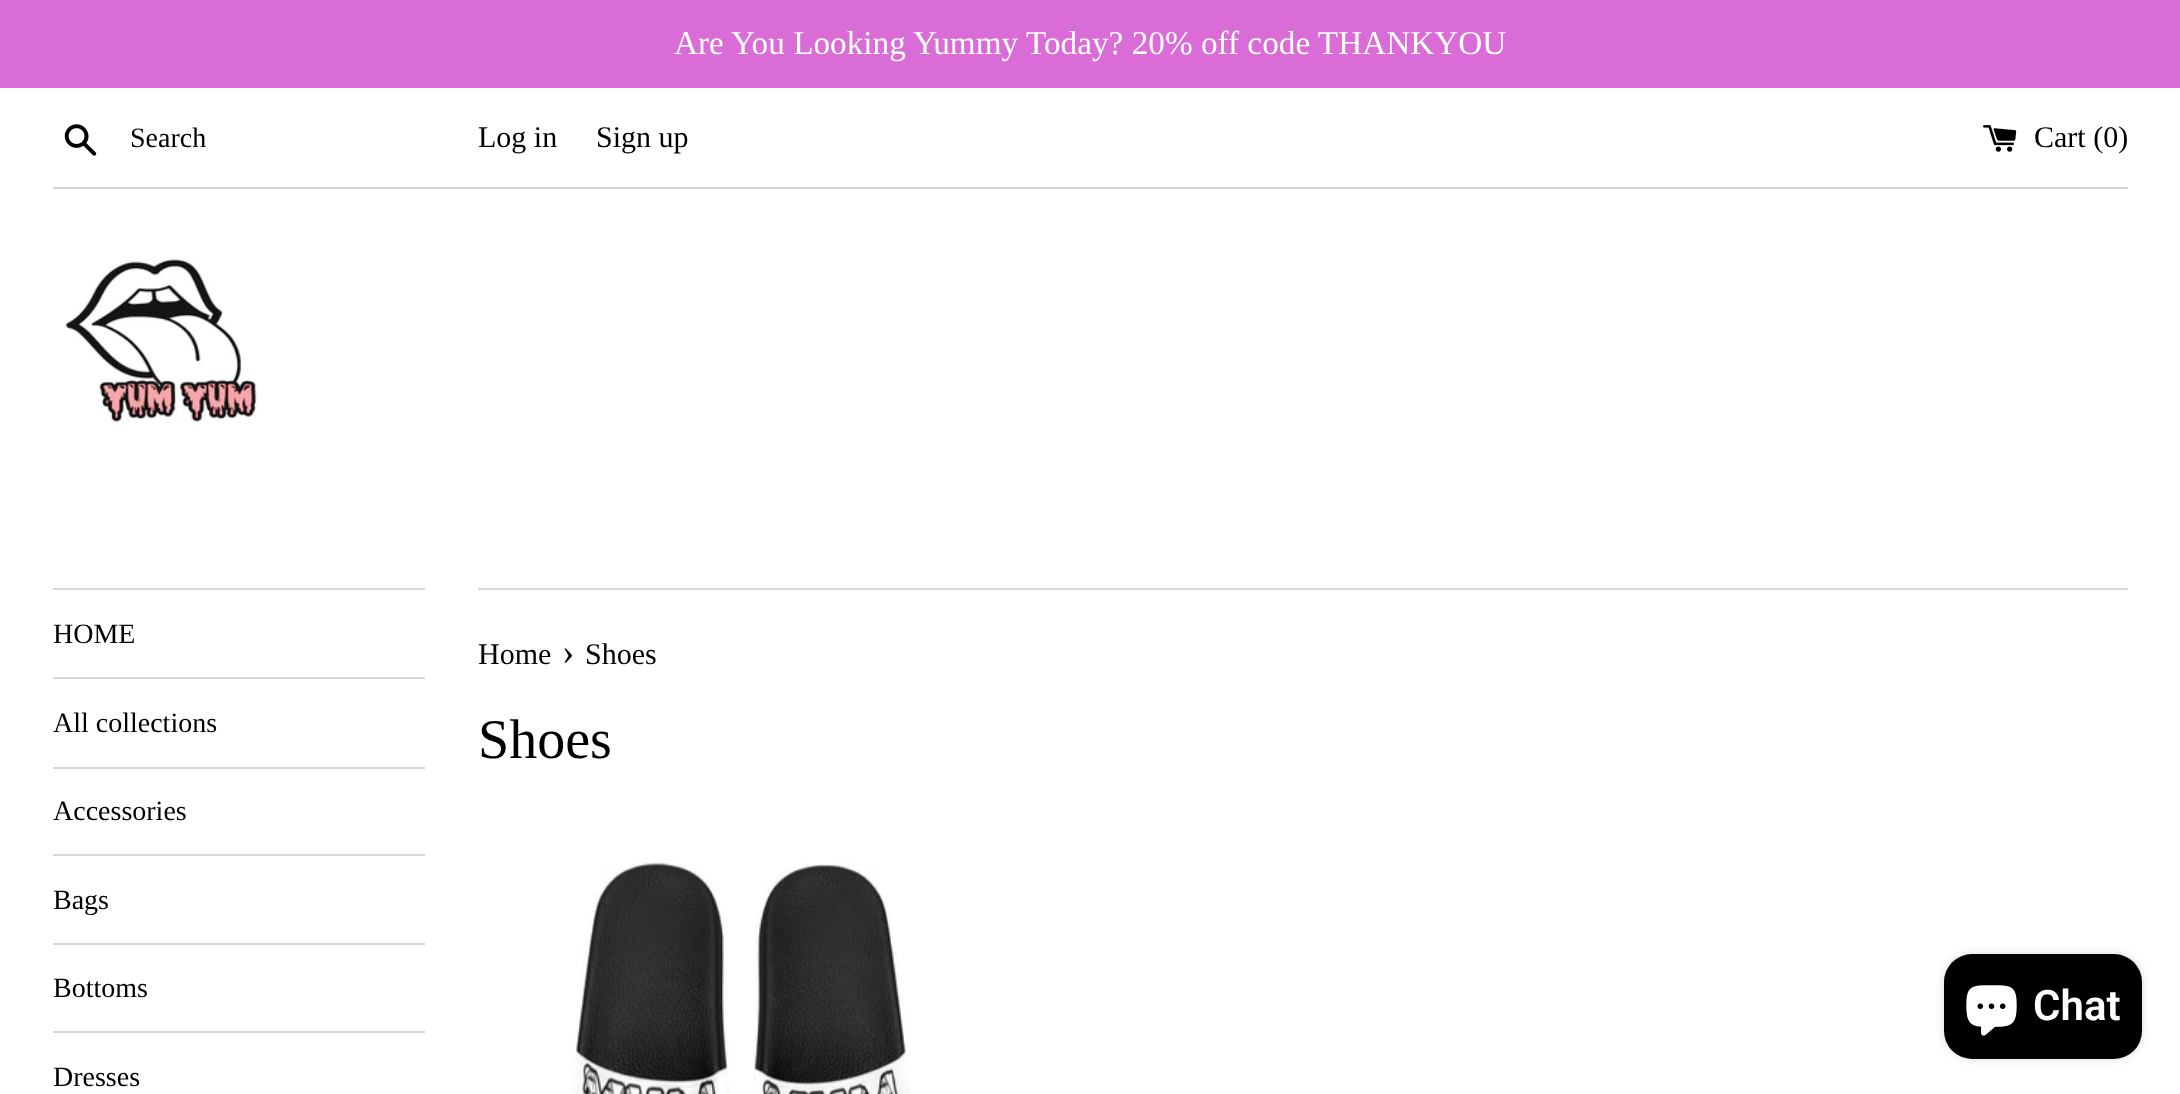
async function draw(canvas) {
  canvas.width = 2180;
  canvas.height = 1094;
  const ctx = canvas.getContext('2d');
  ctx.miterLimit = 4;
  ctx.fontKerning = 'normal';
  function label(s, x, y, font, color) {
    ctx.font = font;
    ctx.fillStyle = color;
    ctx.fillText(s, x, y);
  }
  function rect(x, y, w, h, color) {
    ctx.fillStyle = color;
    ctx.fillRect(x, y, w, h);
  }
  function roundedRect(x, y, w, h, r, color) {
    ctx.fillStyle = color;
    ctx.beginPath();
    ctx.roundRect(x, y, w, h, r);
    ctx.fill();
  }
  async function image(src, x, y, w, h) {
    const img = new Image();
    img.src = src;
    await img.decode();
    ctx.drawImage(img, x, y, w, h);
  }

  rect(0, 0, 2180, 1094, '#fff');
  rect(0, 0, 2180, 88, '#d96cd6');
  label('Are You Looking Yummy Today? 20% off code THANKYOU', 674, 54, '33.25px Liberation Serif', '#fff');
  await image('assets/img1.png', 64, 124, 33, 32);
  label('Search', 130, 147, '28px Liberation Serif', '#000');
  label('Log in', 478, 147, '30px Liberation Serif', '#000');
  label('Sign up', 596, 147, '30px Liberation Serif', '#000');
  await image('assets/img2.png', 1983, 125, 34, 27);
  label('Cart (0)', 2034, 147, '30px Liberation Serif', '#000');
  rect(53, 187, 2075, 2, '#d7d8d2');
  await image('assets/img3.png', 65, 257, 194, 168);
  rect(53, 588, 372, 2, '#d7d8d2');
  rect(53, 677, 372, 2, '#d7d8d2');
  label('HOME', 53, 643, '28px Liberation Serif', '#000');
  rect(53, 767, 372, 2, '#d7d8d2');
  label('All collections', 53, 732, '28px Liberation Serif', '#000');
  rect(53, 854, 372, 2, '#d7d8d2');
  label('Accessories', 53, 820, '28px Liberation Serif', '#000');
  rect(53, 943, 372, 2, '#d7d8d2');
  label('Bags', 53, 909, '28px Liberation Serif', '#000');
  rect(53, 1031, 372, 2, '#d7d8d2');
  label('Bottoms', 53, 997, '28px Liberation Serif', '#000');
  label('Dresses', 53, 1086, '28px Liberation Serif', '#000');
  rect(478, 588, 1650, 2, '#d7d8d2');
  label('Home', 478, 664, '30px Liberation Serif', '#000');
  label('›', 562, 664, '37px Liberation Serif', '#000');
  label('Shoes', 585, 664, '30px Liberation Serif', '#000');
  label('Shoes', 478, 758, '56px Liberation Serif', '#000');
  await image('assets/img4.png', 571, 861, 339, 233);
  ctx.fillStyle = '#00000026';
  ctx.filter = 'blur(4.5px)';
  ctx.beginPath();
  ctx.roundRect(1944, 954, 198, 105, 28);
  ctx.fill();
  ctx.filter = 'none';
  roundedRect(1944, 954, 198, 105, 28, '#000');
  await image('assets/img5.png', 1966, 985, 51, 51);
  label('Chat', 2033, 1020, '600 42px Roboto', '#fff');
}

draw(document.querySelector('canvas'));
